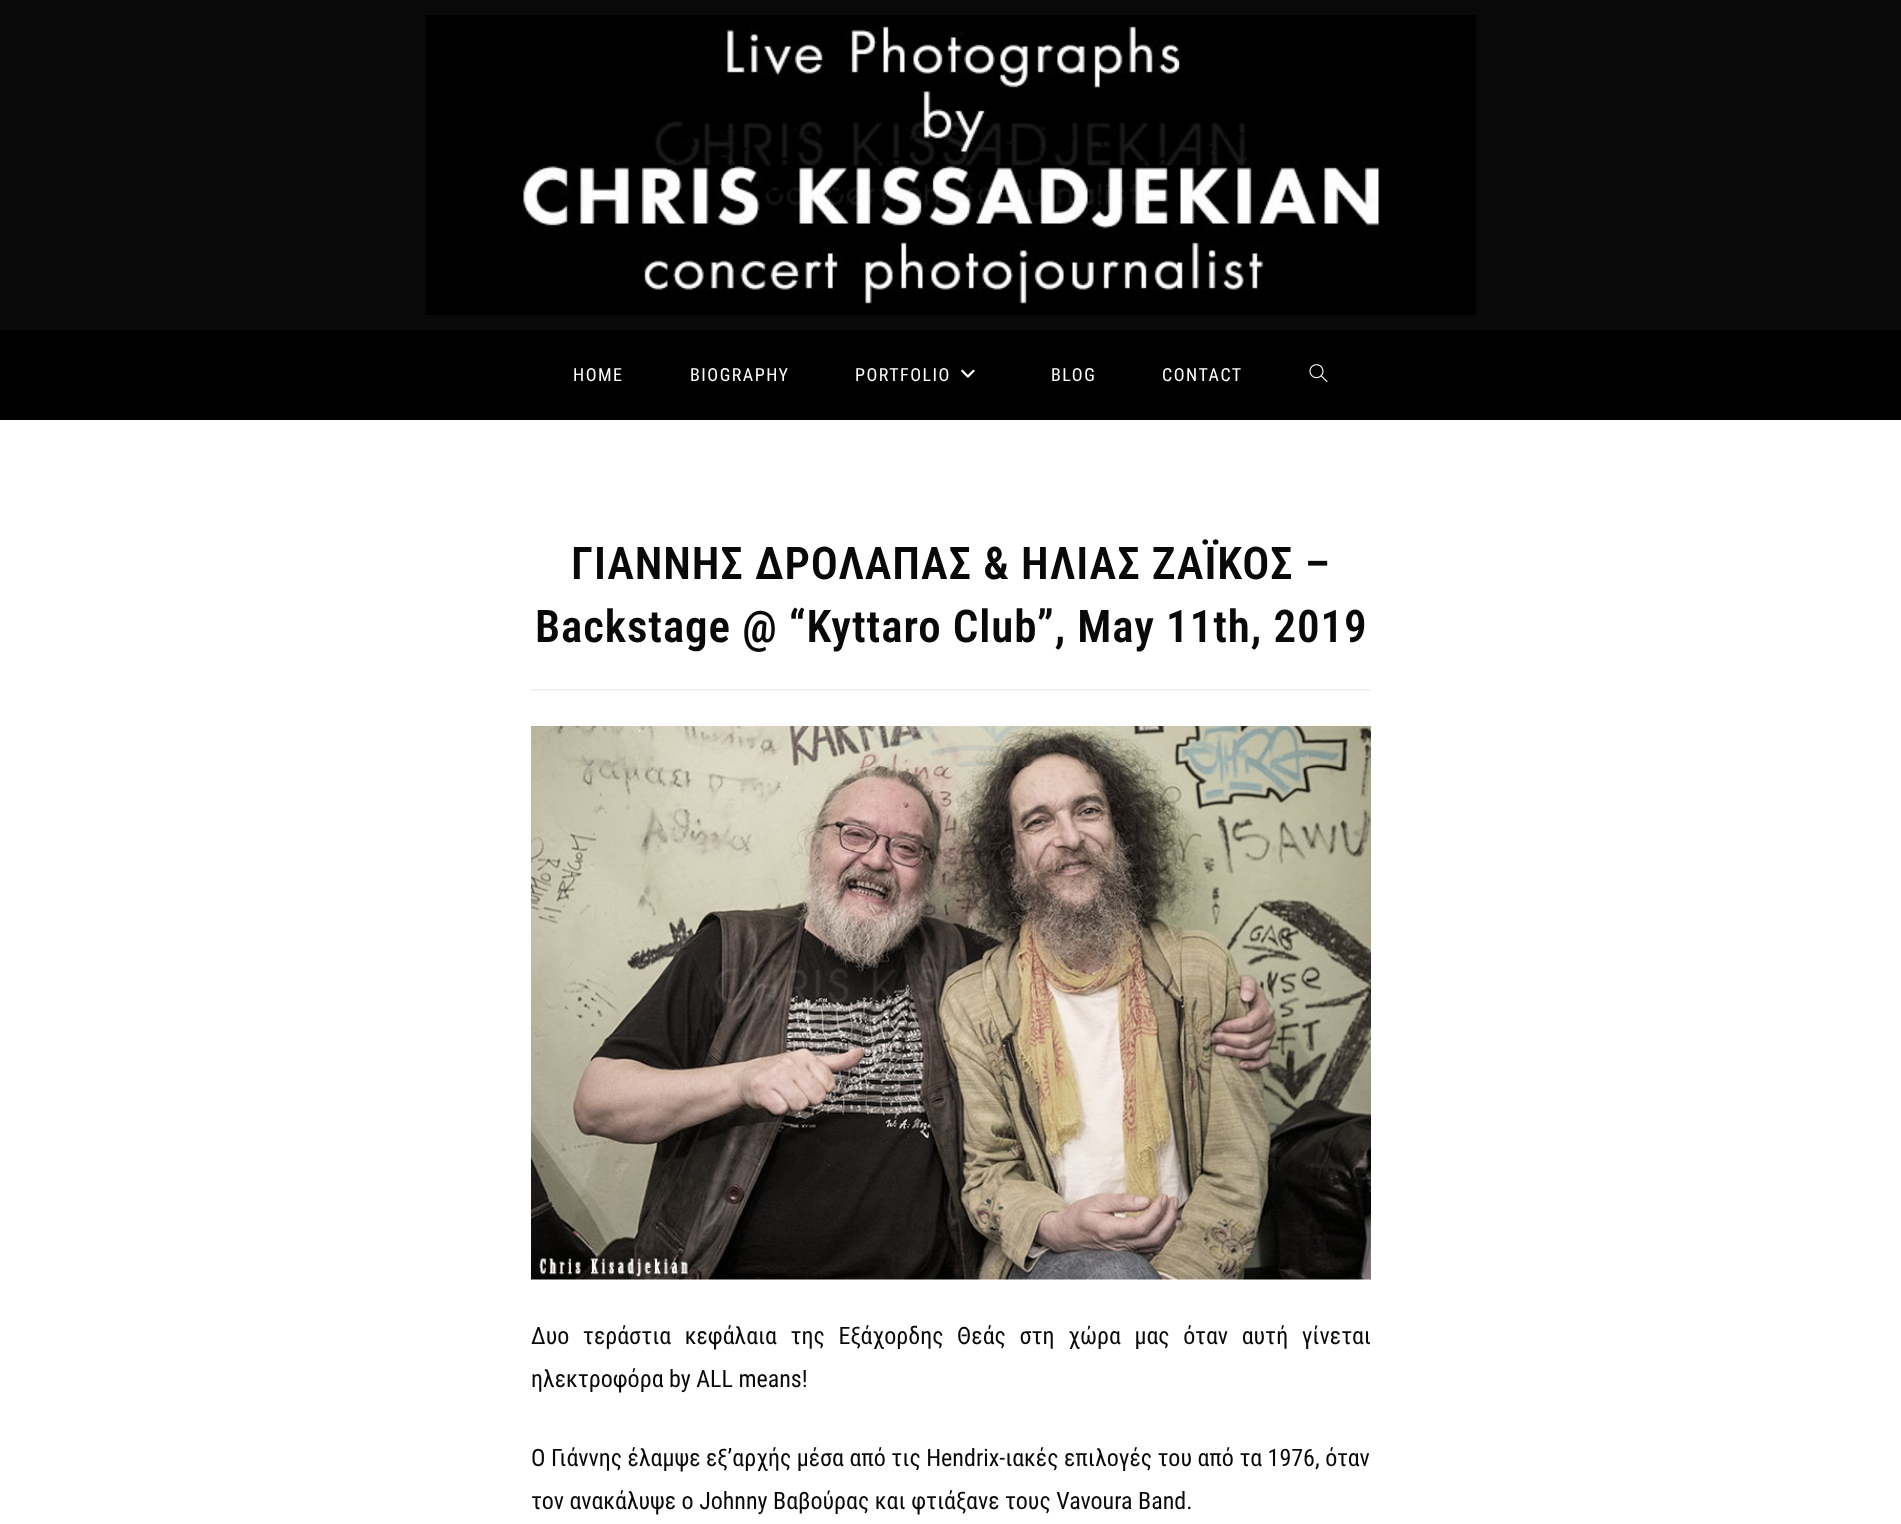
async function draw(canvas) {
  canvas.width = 1901;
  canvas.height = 1524;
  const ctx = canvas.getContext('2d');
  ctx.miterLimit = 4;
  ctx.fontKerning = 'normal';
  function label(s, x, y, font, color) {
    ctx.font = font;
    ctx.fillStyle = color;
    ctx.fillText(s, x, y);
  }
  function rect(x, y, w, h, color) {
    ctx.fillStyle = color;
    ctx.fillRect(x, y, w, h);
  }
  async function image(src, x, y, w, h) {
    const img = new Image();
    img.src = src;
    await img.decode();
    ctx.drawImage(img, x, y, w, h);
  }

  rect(0, 0, 1901, 1524, '#fff');
  rect(0, 0, 1901, 330, '#090909');
  await image('assets/img1.png', 426, 15, 1050, 300);
  rect(0, 330, 1901, 90, '#000');
  ctx.letterSpacing = '1.5px';
  label('HOME', 573, 381, '18px Roboto Condensed', '#fff');
  label('BIOGRAPHY', 690, 381, '18px Roboto Condensed', '#fff');
  label('PORTFOLIO', 855, 381, '18px Roboto Condensed', '#fff');
  await image('assets/img2.png', 961, 369, 14, 9);
  label('BLOG', 1051, 381, '18px Roboto Condensed', '#fff');
  label('CONTACT', 1162, 381, '18px Roboto Condensed', '#fff');
  await image('assets/img3.png', 1309, 364, 19, 19);
  rect(531, 689, 840, 2, '#f1f1f1');
  ctx.letterSpacing = '0.9px';
  label('ΓΙΑΝΝΗΣ ΔΡΟΛΑΠΑΣ & ΗΛΙΑΣ ΖΑΪΚΟΣ –', 571, 579, '600 45px Roboto Condensed', '#090909');
  label('Backstage @ “Kyttaro Club”, May 11th, 2019', 535, 642, '600 45px Roboto Condensed', '#090909');
  await image('assets/img4.png', 531, 726, 840, 554);
  ctx.letterSpacing = '0px';
  ctx.wordSpacing = '8.1px';
  label('Δυο τεράστια κεφάλαια της Εξάχορδης Θεάς στη χώρα μας όταν αυτή γίνεται', 531, 1344, '24px Roboto Condensed', '#090909');
  ctx.wordSpacing = '0px';
  label('ηλεκτροφόρα by ALL means!', 531, 1387, '24px Roboto Condensed', '#090909');
  label('Ο Γιάννης έλαμψε εξ’αρχής μέσα από τις Hendrix-ιακές επιλογές του από τα 1976, όταν', 531, 1466, '24px Roboto Condensed', '#090909');
  label('τον ανακάλυψε ο Johnny Βαβούρας και φτιάξανε τους Vavoura Band.', 531, 1509, '24px Roboto Condensed', '#090909');
}

draw(document.querySelector('canvas'));
